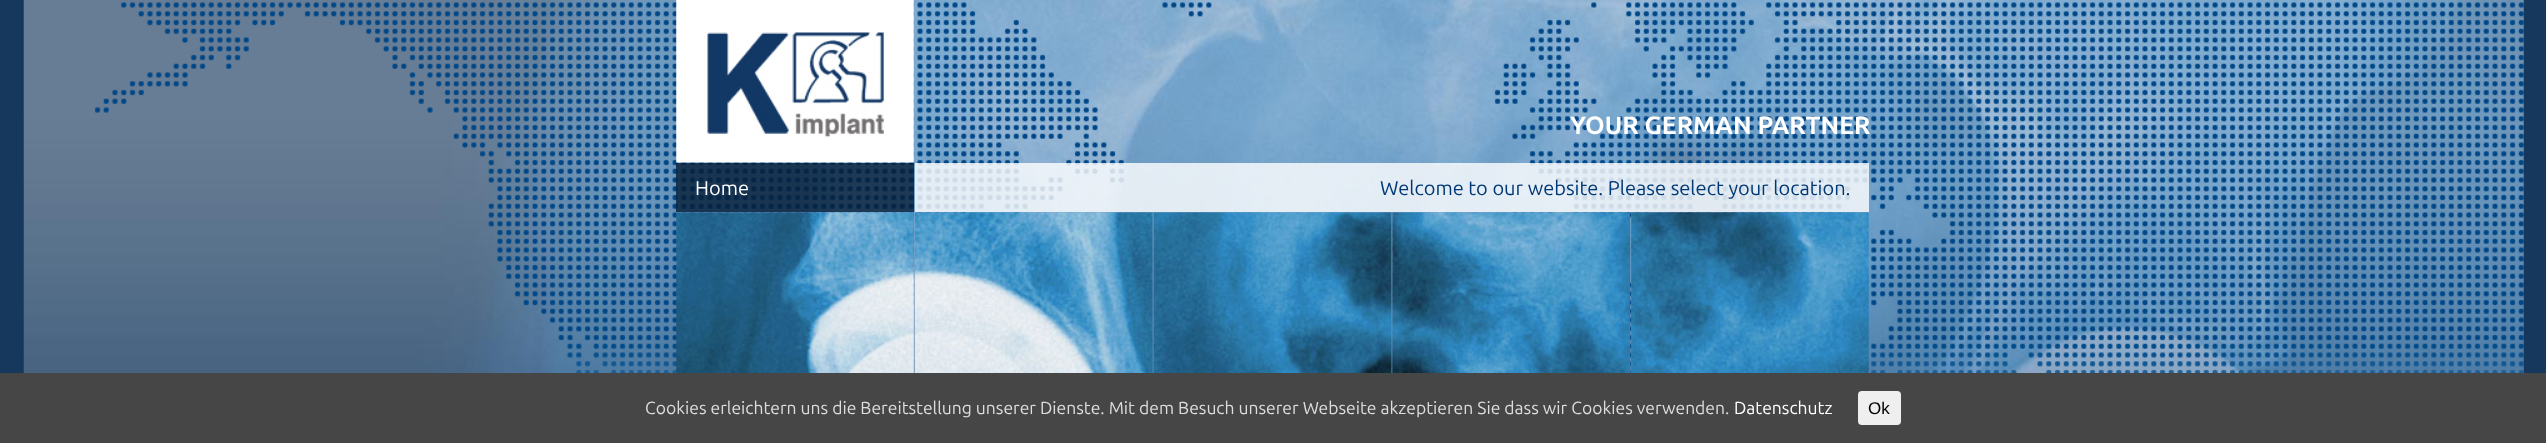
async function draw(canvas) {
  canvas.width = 2546;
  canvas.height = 443;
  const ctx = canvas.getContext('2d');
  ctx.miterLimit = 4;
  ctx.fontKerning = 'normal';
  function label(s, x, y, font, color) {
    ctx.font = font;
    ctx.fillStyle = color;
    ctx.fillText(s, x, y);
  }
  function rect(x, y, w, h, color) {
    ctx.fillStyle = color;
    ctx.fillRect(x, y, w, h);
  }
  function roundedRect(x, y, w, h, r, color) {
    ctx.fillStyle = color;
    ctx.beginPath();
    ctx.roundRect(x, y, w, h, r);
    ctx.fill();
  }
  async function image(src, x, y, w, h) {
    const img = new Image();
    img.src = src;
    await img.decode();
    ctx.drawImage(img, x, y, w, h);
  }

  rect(0, 0, 2546, 443, '#17385d');
  await image('assets/img1.png', 23, 0, 2501, 373);
  await image('assets/img2.png', 94, 2, 2430, 371);
  await image('assets/img3.png', 676, 0, 238, 163);
  label('YOUR GERMAN PARTNER', 1570, 134, 'bold 25px Ubuntu', '#fff');
  rect(676, 163, 238, 49, '#061f39cf');
  label('Home', 695, 195, '20px Ubuntu', '#fff');
  rect(915, 163, 954, 49, '#ffffffcf');
  label('Welcome to our website. Please select your location.', 1380, 195, '20px Ubuntu', '#003875');
  await image('assets/img4.png', 676, 212, 238, 161);
  await image('assets/img5.png', 915, 212, 238, 161);
  await image('assets/img6.png', 1153, 212, 239, 161);
  await image('assets/img7.png', 1392, 212, 238, 161);
  await image('assets/img8.png', 1631, 212, 238, 161);
  rect(0, 373, 2546, 70, '#464646');
  label('Cookies erleichtern uns die Bereitstellung unserer Dienste. Mit dem Besuch unserer Webseite akzeptieren Sie dass wir Cookies verwenden.', 645, 414, '17.5px Ubuntu', '#ddd');
  label('Datenschutz', 1734, 414, '17.5px Ubuntu', '#fff');
  roundedRect(1858, 391, 43, 34, 4, '#efefef');
  label('Ok', 1868, 414, '17px Liberation Sans', '#000');
}

draw(document.querySelector('canvas'));
